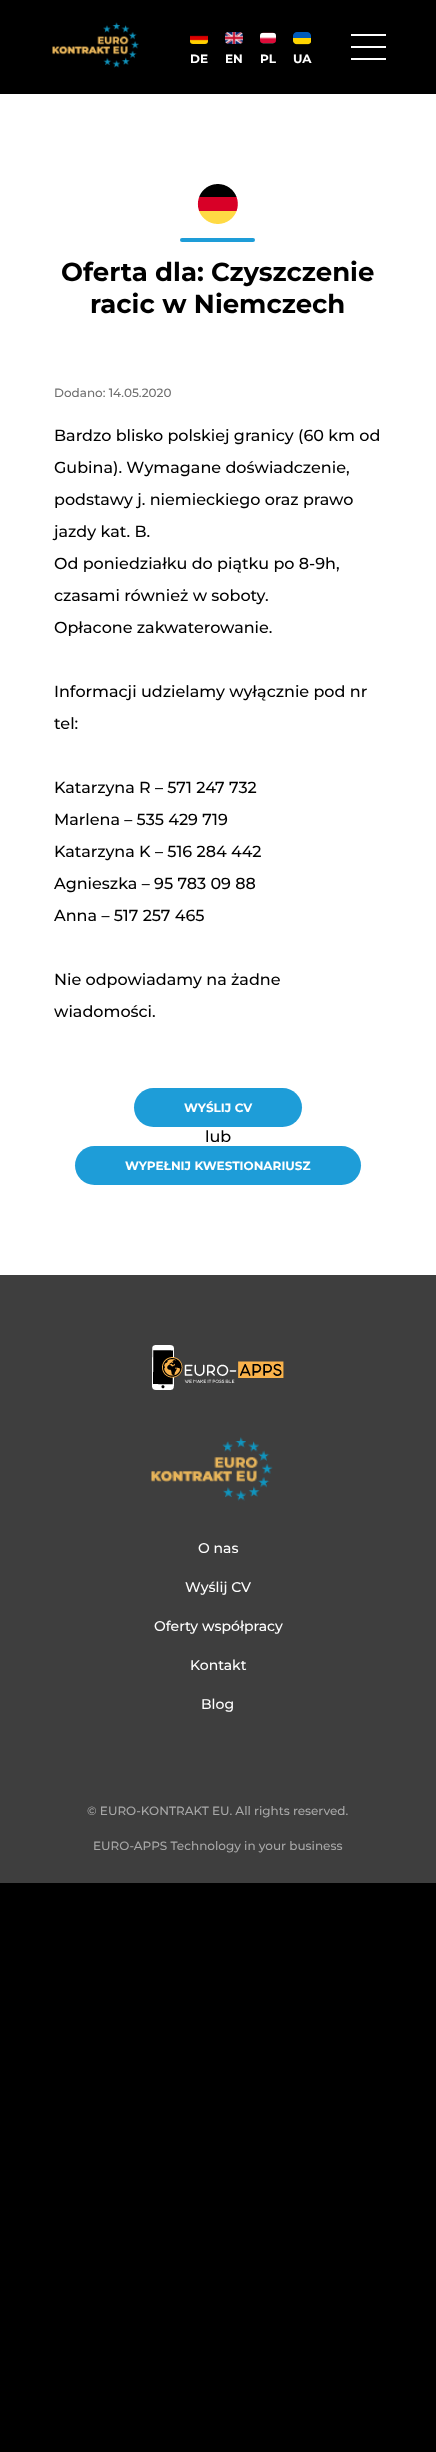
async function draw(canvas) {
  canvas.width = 436;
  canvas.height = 2452;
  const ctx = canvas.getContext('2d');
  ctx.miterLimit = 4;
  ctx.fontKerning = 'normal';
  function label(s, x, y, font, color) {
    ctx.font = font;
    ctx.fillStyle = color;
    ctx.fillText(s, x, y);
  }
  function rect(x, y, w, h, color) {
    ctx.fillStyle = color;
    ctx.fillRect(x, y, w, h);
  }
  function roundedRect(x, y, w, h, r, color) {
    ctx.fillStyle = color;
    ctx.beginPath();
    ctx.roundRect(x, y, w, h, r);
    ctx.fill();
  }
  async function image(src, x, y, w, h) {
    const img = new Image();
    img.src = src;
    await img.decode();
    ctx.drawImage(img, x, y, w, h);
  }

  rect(0, 0, 436, 2452, '#000');
  await image('assets/img1.png', 52, 22, 87, 46);
  await image('assets/img2.png', 190, 35, 18, 9);
  label('DE', 190, 63, 'bold 12px Montserrat', '#fff');
  await image('assets/img3.png', 225, 32, 18, 12);
  label('EN', 225, 63, 'bold 12px Montserrat', '#fff');
  await image('assets/img4.png', 260, 32, 16, 12);
  label('PL', 260, 63, 'bold 12px Montserrat', '#fff');
  await image('assets/img5.png', 293, 32, 18, 13);
  label('UA', 293, 63, 'bold 12px Montserrat', '#fff');
  rect(351, 46, 35, 2, '#fff');
  rect(351, 34, 35, 2, '#fff');
  rect(351, 58, 35, 2, '#fff');
  rect(0, 94, 436, 1181, '#fff');
  await image('assets/img6.png', 197, 184, 41, 40);
  roundedRect(180, 238, 75, 4, 2, '#1e9dd8');
  label('Oferta dla: Czyszczenie', 61, 281, 'bold 26px Montserrat', '#000');
  label('racic w Niemczech', 90, 313, 'bold 26px Montserrat', '#000');
  label('Dodano: 14.05.2020', 54, 397, '500 12px Montserrat', '#707070');
  label('Bardzo blisko polskiej granicy (60 km od', 54, 441, '500 16px Montserrat', '#000');
  label('Gubina). Wymagane doświadczenie,', 54, 473, '500 16px Montserrat', '#000');
  label('podstawy j. niemieckiego oraz prawo', 54, 505, '500 16px Montserrat', '#000');
  label('jazdy kat. B.', 54, 537, '500 16px Montserrat', '#000');
  label('Od poniedziałku do piątku po 8-9h,', 54, 569, '500 16px Montserrat', '#000');
  label('czasami również w soboty.', 54, 601, '500 16px Montserrat', '#000');
  label('Opłacone zakwaterowanie.', 54, 633, '500 16px Montserrat', '#000');
  label('Informacji udzielamy wyłącznie pod nr', 54, 697, '500 16px Montserrat', '#000');
  label('tel:', 54, 729, '500 16px Montserrat', '#000');
  label('Katarzyna R – 571 247 732', 54, 793, '500 16px Montserrat', '#000');
  label('Marlena – 535 429 719', 54, 825, '500 16px Montserrat', '#000');
  label('Katarzyna K – 516 284 442', 54, 857, '500 16px Montserrat', '#000');
  label('Agnieszka – 95 783 09 88', 54, 889, '500 16px Montserrat', '#000');
  label('Anna – 517 257 465', 54, 921, '500 16px Montserrat', '#000');
  label('Nie odpowiadamy na żadne', 54, 985, '500 16px Montserrat', '#000');
  label('wiadomości.', 54, 1017, '500 16px Montserrat', '#000');
  roundedRect(134, 1088, 168, 39, 19.5, '#1e9dd8');
  label('WYŚLIJ CV', 184, 1112, 'bold 12px Montserrat', '#fff');
  label('lub', 205, 1142, '500 16px Montserrat', '#000');
  roundedRect(75, 1146, 286, 39, 19.5, '#1e9dd8');
  label('WYPEŁNIJ KWESTIONARIUSZ', 125, 1170, 'bold 12px Montserrat', '#fff');
  rect(0, 1275, 436, 608, '#3e3e3e');
  await image('assets/img7.png', 152, 1345, 132, 45);
  await image('assets/img8.png', 151, 1437, 122, 64);
  label('O nas', 198, 1553, '500 14px Montserrat', '#fff');
  label('Wyślij CV', 185, 1592, '500 14px Montserrat', '#fff');
  label('Oferty współpracy', 154, 1631, '500 14px Montserrat', '#fff');
  label('Kontakt', 190, 1670, '500 14px Montserrat', '#fff');
  label('Blog', 201, 1709, '500 14px Montserrat', '#fff');
  label('© EURO-KONTRAKT EU. All rights reserved.', 87, 1815, '500 12px Montserrat', '#a8a8a8');
  label('EURO-APPS Technology in your business', 93, 1850, '500 12px Montserrat', '#a8a8a8');
}

draw(document.querySelector('canvas'));
